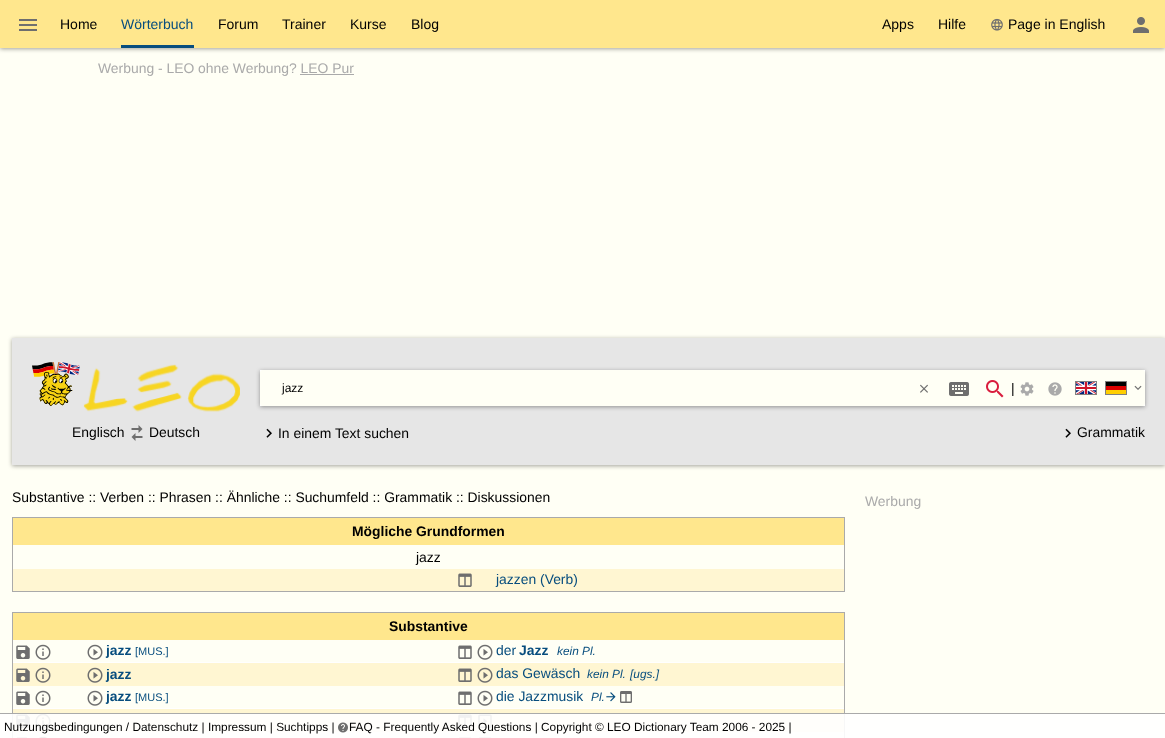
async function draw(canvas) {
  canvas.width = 1165;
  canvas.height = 738;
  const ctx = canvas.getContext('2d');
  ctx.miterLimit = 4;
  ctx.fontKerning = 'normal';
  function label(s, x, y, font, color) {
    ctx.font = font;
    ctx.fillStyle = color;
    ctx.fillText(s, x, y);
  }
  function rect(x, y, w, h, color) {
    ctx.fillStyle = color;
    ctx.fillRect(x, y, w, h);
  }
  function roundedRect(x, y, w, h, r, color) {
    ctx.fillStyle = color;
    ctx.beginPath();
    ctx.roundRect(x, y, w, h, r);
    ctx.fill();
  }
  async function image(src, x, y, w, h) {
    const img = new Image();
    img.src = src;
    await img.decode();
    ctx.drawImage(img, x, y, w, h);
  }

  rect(0, 0, 1165, 738, '#fffff5');
  ctx.fillStyle = '#0000005e';
  ctx.filter = 'blur(2px)';
  ctx.beginPath();
  ctx.rect(0, 1, 1165, 48);
  ctx.fill();
  ctx.filter = 'none';
  rect(0, 0, 1165, 48, '#ffe78d');
  await image('assets/img1.png', 19, 19, 18, 12);
  label('Home', 60, 29, '14px Liberation Sans', '#000');
  label('Wörterbuch', 121, 29, '14px Liberation Sans', '#074d7e');
  rect(121, 45, 73, 3, '#074d7e');
  label('Forum', 218, 29, '14px Liberation Sans', '#000');
  label('Trainer', 282, 29, '14px Liberation Sans', '#000');
  label('Kurse', 350, 29, '14px Liberation Sans', '#000');
  label('Blog', 411, 29, '14px Liberation Sans', '#000');
  label('Apps', 882, 29, '14px Liberation Sans', '#000');
  label('Hilfe', 938, 29, '14px Liberation Sans', '#000');
  await image('assets/img2.png', 991, 18, 12, 13);
  label('Page in English', 1008, 29, '14px Liberation Sans', '#000');
  await image('assets/img3.png', 1133, 17, 16, 16);
  label('Werbung - LEO ohne Werbung? LEO Pur', 98, 73, '13.9px Liberation Sans', '#aaa');
  rect(300, 74, 54, 1, '#aaa');
  ctx.fillStyle = '#0000005e';
  ctx.filter = 'blur(2px)';
  ctx.beginPath();
  ctx.rect(12, 339, 1153, 127);
  ctx.fill();
  ctx.filter = 'none';
  rect(12, 338, 1153, 127, '#e6e6e6');
  await image('assets/img4.png', 32, 362, 48, 44);
  await image('assets/img5.png', 83, 364, 157, 48);
  ctx.fillStyle = '#0000005e';
  ctx.filter = 'blur(2px)';
  ctx.beginPath();
  ctx.rect(260, 371, 885, 36);
  ctx.fill();
  ctx.filter = 'none';
  rect(260, 370, 885, 36, '#fff');
  roundedRect(260, 370, 885, 36, 3, '#fffff5');
  label('jazz', 282, 392, '12px Liberation Sans', '#000');
  await image('assets/img6.png', 920, 384, 8, 9);
  await image('assets/img7.png', 949, 382, 20, 14);
  await image('assets/img8.png', 986, 380, 18, 18);
  label('|', 1011, 393, '13.9px Liberation Sans', '#000');
  await image('assets/img9.png', 1020, 382, 14, 14);
  await image('assets/img10.png', 1048, 382, 14, 14);
  await image('assets/img11.png', 1076, 382, 20, 12);
  ctx.strokeStyle = '#808080';
  ctx.strokeRect(1075.5, 381.5, 21, 13);
  rect(1105, 382, 22, 4, '#000');
  rect(1105, 386, 22, 4, '#d00');
  rect(1105, 390, 22, 4, '#ffce00');
  ctx.strokeRect(1105.5, 381.5, 21, 13);
  await image('assets/img12.png', 1134, 385, 8, 5);
  label('Englisch', 72, 437, '13.9px Liberation Sans', '#000');
  await image('assets/img13.png', 131, 425, 12, 16);
  label('Deutsch', 149, 437, '13.9px Liberation Sans', '#000');
  await image('assets/img14.png', 266, 428, 6, 10);
  label('In einem Text suchen', 278, 438, '13.9px Liberation Sans', '#000');
  await image('assets/img14.png', 1065, 428, 6, 10);
  label('Grammatik', 1077, 437, '13.9px Liberation Sans', '#000');
  label('Substantive :: Verben :: Phrasen :: Ähnliche :: Suchumfeld :: Grammatik :: Diskussionen', 12, 502, '13.9px Liberation Sans', '#000');
  ctx.strokeStyle = '#aaa';
  ctx.strokeRect(12.5, 517.5, 832, 74);
  rect(13, 518, 831, 27, '#ffe78d');
  label('Mögliche Grundformen', 352, 536, 'bold 13.9px Liberation Sans', '#000');
  label('jazz', 416, 562, '13.9px Liberation Sans', '#000');
  rect(13, 569, 831, 22, '#fff6d2');
  await image('assets/img15.png', 458, 573, 14, 14);
  label('jazzen (Verb)', 496, 584, '13.9px Liberation Sans', '#074d7e');
  ctx.strokeRect(12.5, 612.5, 832, 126);
  rect(13, 613, 831, 27, '#ffe78d');
  label('Substantive', 389, 631, 'bold 13.9px Liberation Sans', '#000');
  await image('assets/img16.png', 16, 645, 14, 14);
  await image('assets/img17.png', 35, 644, 16, 16);
  await image('assets/img18.png', 87, 644, 16, 16);
  label('jazz', 106, 655, 'bold 13.9px Liberation Sans', '#074d7e');
  label('[MUS.]', 135, 655, '11px Liberation Sans', '#074d7e');
  await image('assets/img19.png', 458, 645, 14, 14);
  await image('assets/img18.png', 477, 644, 16, 16);
  rect(13, 662, 831, 1, '#fff');
  label('der', 496, 655, '13.9px Liberation Sans', '#074d7e');
  label('Jazz', 519, 655, 'bold 13.9px Liberation Sans', '#074d7e');
  label('kein Pl.', 557, 655, 'italic 11.85px Liberation Sans', '#074d7e');
  rect(13, 663, 831, 23, '#fff6d2');
  await image('assets/img20.png', 16, 668, 14, 14);
  await image('assets/img21.png', 35, 667, 16, 16);
  await image('assets/img22.png', 87, 667, 16, 16);
  label('jazz', 106, 679, 'bold 13.9px Liberation Sans', '#074d7e');
  await image('assets/img15.png', 458, 668, 14, 14);
  await image('assets/img22.png', 477, 667, 16, 16);
  label('das Gewäsch', 496, 678, '13.9px Liberation Sans', '#074d7e');
  label('kein Pl.', 587, 678, 'italic 11.85px Liberation Sans', '#074d7e');
  label('[ugs.]', 630, 678, 'italic 11.85px Liberation Sans', '#074d7e');
  await image('assets/img16.png', 16, 691, 14, 14);
  await image('assets/img17.png', 35, 690, 16, 16);
  await image('assets/img18.png', 87, 690, 16, 16);
  label('jazz', 106, 701, 'bold 13.9px Liberation Sans', '#074d7e');
  label('[MUS.]', 135, 701, '11px Liberation Sans', '#074d7e');
  await image('assets/img19.png', 458, 691, 14, 14);
  await image('assets/img18.png', 477, 690, 16, 16);
  rect(13, 708, 831, 1, '#fff');
  label('die Jazzmusik', 496, 701, '13.9px Liberation Sans', '#074d7e');
  label('Pl.', 591, 701, 'italic 11.85px Liberation Sans', '#074d7e');
  await image('assets/img23.png', 606, 692, 10, 10);
  await image('assets/img24.png', 620, 691, 12, 12);
  rect(13, 709, 831, 23, '#fff6d2');
  await image('assets/img20.png', 16, 714, 14, 14);
  await image('assets/img25.png', 35, 714, 16, 15);
  await image('assets/img15.png', 458, 714, 14, 14);
  await image('assets/img26.png', 478, 714, 14, 14);
  await image('assets/img27.png', 16, 737, 12, 1);
  await image('assets/img28.png', 39, 736, 8, 2);
  await image('assets/img29.png', 458, 737, 14, 1);
  await image('assets/img30.png', 478, 737, 14, 1);
  label('Werbung', 865, 506, '13.9px Liberation Sans', '#aaa');
  rect(0, 714, 1165, 24, '#ffffffe6');
  rect(0, 713, 1165, 1, '#aaa');
  label('Nutzungsbedingungen / Datenschutz | Impressum | Suchtipps |', 4, 731, '11.85px Liberation Sans', '#000');
  await image('assets/img31.png', 338, 722, 10, 11);
  label('FAQ - Frequently Asked Questions | Copyright © LEO Dictionary Team 2006 - 2025 |', 349, 731, '11.85px Liberation Sans', '#000');
}

draw(document.querySelector('canvas'));
